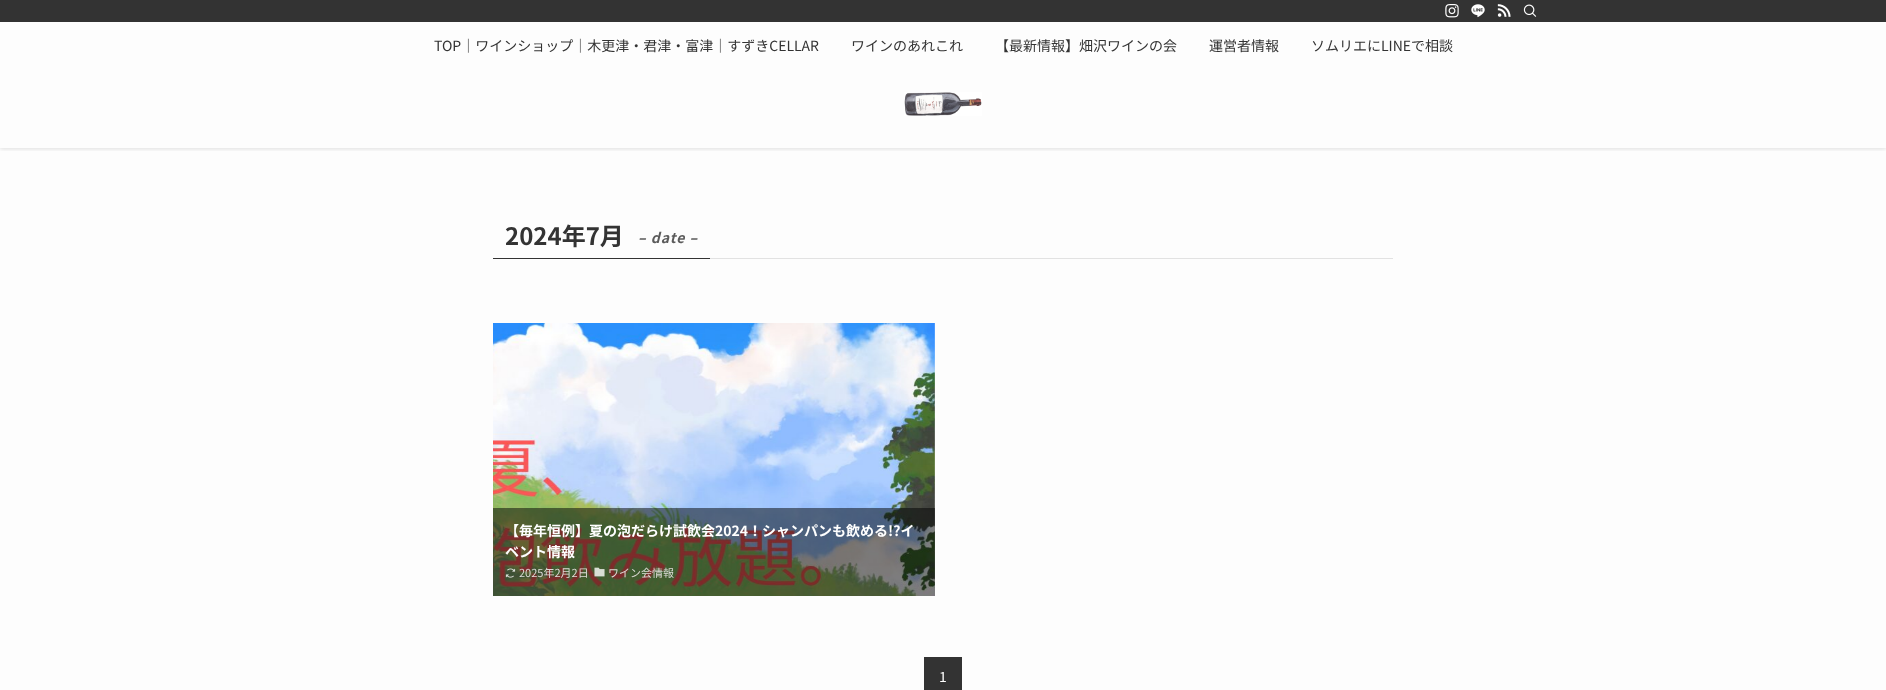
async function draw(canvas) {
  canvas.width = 1886;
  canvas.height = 690;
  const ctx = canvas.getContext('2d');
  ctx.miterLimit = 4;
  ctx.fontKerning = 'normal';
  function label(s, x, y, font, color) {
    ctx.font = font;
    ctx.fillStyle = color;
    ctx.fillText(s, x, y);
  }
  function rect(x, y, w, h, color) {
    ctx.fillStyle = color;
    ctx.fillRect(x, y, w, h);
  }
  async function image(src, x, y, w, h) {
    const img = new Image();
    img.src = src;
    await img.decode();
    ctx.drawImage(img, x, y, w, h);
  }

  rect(0, 0, 1886, 690, '#fdfdfd');
  ctx.save();
  ctx.beginPath();
  ctx.rect(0, 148, 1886, 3);
  ctx.clip();
  ctx.fillStyle = '#0000001f';
  ctx.filter = 'blur(2px)';
  ctx.beginPath();
  ctx.rect(0, 1, 1886, 148);
  ctx.fill();
  ctx.filter = 'none';
  ctx.restore();
  rect(0, 0, 1886, 22, '#333');
  await image('assets/img1.png', 1445, 4, 14, 14);
  await image('assets/img2.png', 1471, 4, 14, 14);
  await image('assets/img3.png', 1497, 4, 14, 13);
  await image('assets/img4.png', 1523, 4, 14, 13);
  label('TOP｜ワインショップ｜木更津・君津・富津｜すずきCELLAR', 434, 51, '14px Noto Sans JP', '#333');
  label('ワインのあれこれ', 851, 51, '14px Noto Sans JP', '#333');
  label('【最新情報】畑沢ワインの会', 995, 51, '14px Noto Sans JP', '#333');
  label('運営者情報', 1209, 51, '14px Noto Sans JP', '#333');
  label('ソムリエにLINEで相談', 1311, 51, '14px Noto Sans JP', '#333');
  await image('assets/img5.png', 904, 92, 78, 24);
  rect(710, 258, 683, 1, '#e2e2e2');
  rect(493, 258, 217, 1, '#333');
  label('2024年7月', 505, 245, 'bold 24px Noto Sans JP', '#333');
  ctx.letterSpacing = '1px';
  label('– date –', 638, 243, 'italic bold 14px Noto Sans JP', '#5b5b5b');
  await image('assets/img6.png', 493, 323, 442, 273);
  rect(493, 508, 442, 88, '#00000080');
  ctx.letterSpacing = '0px';
  label('【毎年恒例】夏の泡だらけ試飲会2024！シャンパンも飲める!?イ', 505, 536, 'bold 14px Noto Sans JP', '#fff');
  label('ベント情報', 505, 557, 'bold 14px Noto Sans JP', '#fff');
  await image('assets/img7.png', 505, 568, 11, 10);
  label('2025年2月2日', 519, 577, '11px Noto Sans JP', '#dddbd6');
  await image('assets/img8.png', 594, 567, 11, 10);
  label('ワイン会情報', 608, 577, '11px Noto Sans JP', '#dddbd6');
  rect(924, 657, 38, 33, '#333');
  label('1', 939, 682, '14px Noto Sans JP', '#fff');
}

draw(document.querySelector('canvas'));
